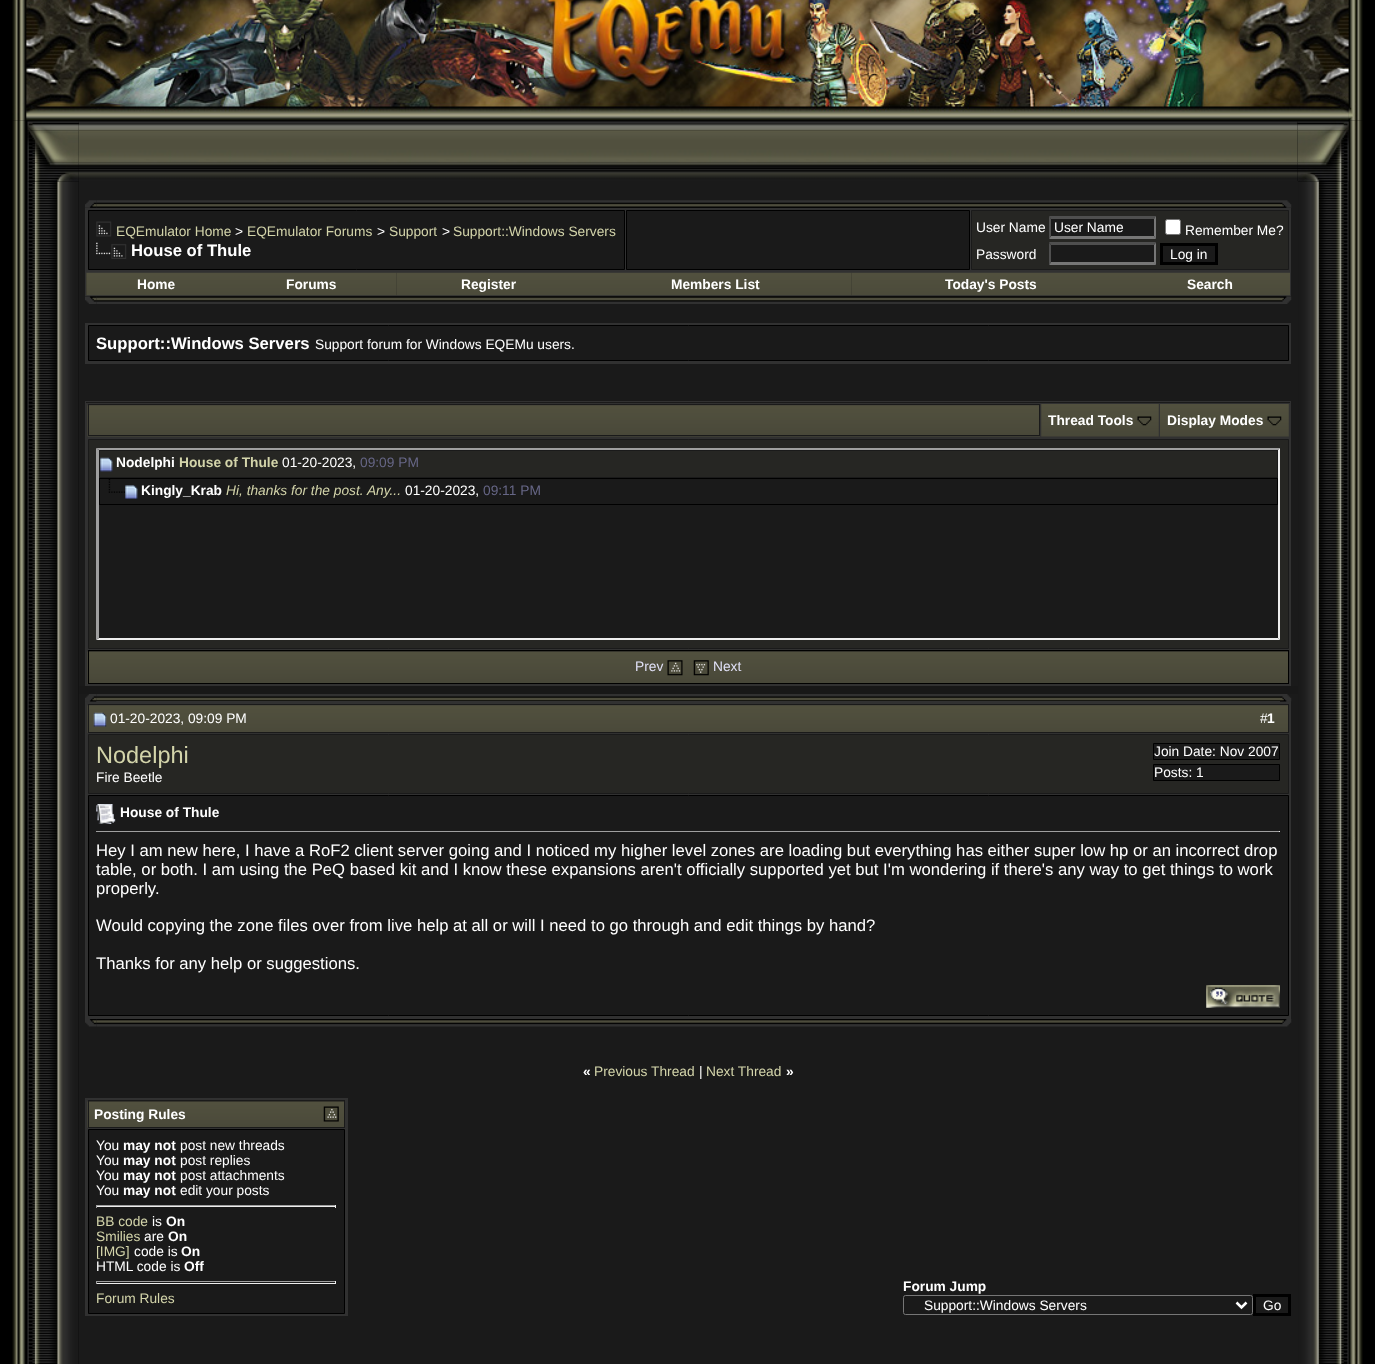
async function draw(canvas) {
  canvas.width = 1375;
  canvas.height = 1364;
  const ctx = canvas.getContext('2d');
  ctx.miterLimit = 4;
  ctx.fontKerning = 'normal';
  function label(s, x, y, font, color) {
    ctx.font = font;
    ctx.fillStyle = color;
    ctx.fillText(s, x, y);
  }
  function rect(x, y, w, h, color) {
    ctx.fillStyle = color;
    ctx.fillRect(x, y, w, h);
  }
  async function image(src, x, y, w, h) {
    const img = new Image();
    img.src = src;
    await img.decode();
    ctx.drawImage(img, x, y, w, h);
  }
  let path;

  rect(0, 0, 1375, 1364, '#000');
  await image('assets/img2.png', 26, 0, 1323, 121);
  await image('assets/img3.png', 26, 0, 1323, 120);
  await image('assets/img5.png', 12, 120, 14, 1244);
  await image('assets/img1.png', 12, 0, 15, 121);
  await image('assets/img53.png', 1298, 181, 51, 1183);
  await image('assets/img54.png', 1348, 120, 15, 1244);
  await image('assets/img4.png', 1348, 0, 15, 121);
  await image('assets/img7.png', 78, 121, 1220, 10);
  await image('assets/img10.png', 78, 130, 1220, 33);
  await image('assets/img6.png', 27, 121, 52, 10);
  await image('assets/img8.png', 1297, 121, 52, 10);
  await image('assets/img13.png', 78, 162, 1220, 20);
  await image('assets/img9.png', 27, 130, 52, 33);
  await image('assets/img11.png', 1297, 130, 52, 33);
  await image('assets/img15.png', 27, 181, 52, 1183);
  await image('assets/img12.png', 27, 162, 52, 20);
  rect(79, 181, 1219, 505, '#1a1a1a');
  await image('assets/img14.png', 1297, 162, 52, 20);
  rect(79, 686, 1219, 8, '#181818');
  await image('assets/img16.png', 85, 200, 11, 8);
  await image('assets/img17.png', 96, 200, 1184, 8);
  await image('assets/img18.png', 1280, 200, 12, 8);
  rect(85, 208, 1206, 65, '#313131');
  ctx.fillStyle = '#1a1a1a';
  ctx.beginPath();
  ctx.rect(88.5, 210.5, 536, 59);
  ctx.fill();
  ctx.strokeStyle = '#000';
  ctx.stroke();
  await image('assets/img19.png', 96, 221, 16, 16);
  label('EQEmulator Home', 116, 236, '13.75px Liberation Sans', '#d3d4aa');
  label('>', 235, 236, '13.75px Liberation Sans', '#fff');
  label('EQEmulator Forums', 247, 236, '13.75px Liberation Sans', '#d3d4aa');
  label('>', 377, 236, '13.75px Liberation Sans', '#fff');
  label('Support', 389, 236, '13.75px Liberation Sans', '#d3d4aa');
  label('>', 442, 236, '13.75px Liberation Sans', '#fff');
  label('Support::Windows Servers', 453, 236, '13.75px Liberation Sans', '#d3d4aa');
  await image('assets/img20.png', 96, 242, 31, 17);
  label('House of Thule', 131, 256, 'bold 16.67px Liberation Sans', '#fff');
  ctx.fillStyle = '#1a1a1a';
  ctx.beginPath();
  ctx.rect(626.5, 210.5, 343, 59);
  ctx.fill();
  ctx.stroke();
  ctx.fillStyle = '#262623';
  ctx.beginPath();
  ctx.rect(971.5, 210.5, 317, 59);
  ctx.fill();
  ctx.strokeStyle = '#1a1a1a';
  ctx.stroke();
  label('User Name', 976, 232, '13.75px Liberation Sans', '#fff');
  rect(1049, 216, 107, 23, '#1a1a1a');
  ctx.fillStyle = '#4f4f4f';
  path = new Path2D('M1049 216H1156L1154 219H1051Z');
  ctx.fill(path);
  ctx.fillStyle = '#767676';
  path = new Path2D('M1156 216V239L1154 236V219Z');
  ctx.fill(path);
  path = new Path2D('M1156 239H1049L1051 236H1154Z');
  ctx.fill(path);
  ctx.fillStyle = '#4f4f4f';
  path = new Path2D('M1049 239V216L1051 219V236Z');
  ctx.fill(path);
  label('User Name', 1054, 232, '13.75px Liberation Sans', '#fff');
  ctx.beginPath();
  ctx.roundRect(1165.5, 219.5, 15, 15, 2);
  ctx.fill();
  ctx.strokeStyle = '#767676';
  ctx.stroke();
  label('Remember Me?', 1185, 235, '13.75px Liberation Sans', '#fff');
  label('Password', 976, 259, '13.75px Liberation Sans', '#fff');
  rect(1049, 243, 107, 22, '#1a1a1a');
  ctx.fillStyle = '#4f4f4f';
  path = new Path2D('M1049 242H1156L1154 245H1051Z');
  ctx.fill(path);
  ctx.fillStyle = '#767676';
  path = new Path2D('M1156 242.5V265L1154 262.5V245Z');
  ctx.fill(path);
  path = new Path2D('M1156 265H1049L1051 262H1154Z');
  ctx.fill(path);
  ctx.fillStyle = '#4f4f4f';
  path = new Path2D('M1049 265V242.5L1051 245V262.5Z');
  ctx.fill(path);
  ctx.fillStyle = '#1a1a1a';
  ctx.beginPath();
  ctx.rect(1161.5, 244.5, 55, 19);
  ctx.fill();
  ctx.strokeStyle = '#000';
  ctx.lineWidth = 3;
  ctx.stroke();
  label('Log in', 1170, 259, '13.75px Liberation Sans', '#fff');
  rect(1290, 273, 1, 23, '#313131');
  rect(85, 295, 1206, 1, '#313131');
  rect(85, 273, 1, 23, '#313131');
  await image('assets/img21.png', 86, 272, 139, 24);
  label('Home', 137, 289, 'bold 13.75px Liberation Sans', '#fff');
  await image('assets/img22.png', 225, 272, 172, 24);
  label('Forums', 286, 289, 'bold 13.75px Liberation Sans', '#fff');
  await image('assets/img23.png', 396, 272, 184, 24);
  label('Register', 461, 289, 'bold 13.75px Liberation Sans', '#fff');
  await image('assets/img24.png', 580, 272, 272, 24);
  label('Members List', 671, 289, 'bold 13.75px Liberation Sans', '#fff');
  await image('assets/img25.png', 851, 272, 279, 24);
  label('Today\'s Posts', 945, 289, 'bold 13.75px Liberation Sans', '#fff');
  await image('assets/img26.png', 1130, 272, 160, 24);
  label('Search', 1187, 289, 'bold 13.75px Liberation Sans', '#fff');
  await image('assets/img27.png', 85, 296, 11, 8);
  await image('assets/img28.png', 96, 296, 1184, 8);
  await image('assets/img29.png', 1280, 296, 12, 8);
  rect(85, 323, 1206, 41, '#313131');
  ctx.fillStyle = '#1a1a1a';
  ctx.beginPath();
  ctx.rect(88.5, 325.5, 1200, 35);
  ctx.fill();
  ctx.lineWidth = 1;
  ctx.stroke();
  label('Support::Windows Servers', 96, 349, 'bold 16.67px Liberation Sans', '#fff');
  label('Support forum for Windows EQEMu users.', 315, 349, '13.75px Liberation Sans', '#fff');
  rect(86, 403, 1204, 282, '#313131');
  rect(85, 401, 1206, 1, '#313131');
  rect(1290, 401, 1, 285, '#313131');
  rect(85, 401, 1, 37, '#313131');
  await image('assets/img30.png', 87, 405, 953, 32);
  ctx.strokeStyle = '#1a1a1a';
  ctx.strokeRect(88.5, 404.5, 951, 31);
  await image('assets/img31.png', 1041, 404, 118, 33);
  label('Thread Tools', 1048, 425, 'bold 13.75px Liberation Sans', '#fff');
  await image('assets/img32.png', 1137, 416, 15, 10);
  await image('assets/img33.png', 1160, 404, 129, 33);
  label('Display Modes', 1167, 425, 'bold 13.75px Liberation Sans', '#fff');
  await image('assets/img34.png', 1267, 416, 15, 10);
  rect(85, 685, 1206, 1, '#313131');
  rect(85, 438, 1, 248, '#313131');
  ctx.fillStyle = '#262623';
  ctx.beginPath();
  ctx.rect(88.5, 439.5, 1200, 209);
  ctx.fill();
  ctx.stroke();
  rect(96, 448, 1184, 192, '#1a1a1a');
  ctx.fillStyle = '#9f9f9f';
  path = new Path2D('M96 448H1280L1278 450H99Z');
  ctx.fill(path);
  ctx.fillStyle = '#eee';
  path = new Path2D('M1280 448V640L1278 638V450Z');
  ctx.fill(path);
  path = new Path2D('M1280 640H96L99 638H1278Z');
  ctx.fill(path);
  ctx.fillStyle = '#9f9f9f';
  path = new Path2D('M96 640V448L99 450V638Z');
  ctx.fill(path);
  rect(100, 451, 1177, 26, '#262623');
  await image('assets/img35.png', 100, 457, 13, 15);
  label('Nodelphi', 116, 467, 'bold 13.75px Liberation Sans', '#fff');
  label('House of Thule', 179, 467, 'bold 13.75px Liberation Sans', '#d3d4aa');
  label('01-20-2023,', 282, 467, '13.75px Liberation Sans', '#fff');
  label('09:09 PM', 360, 467, '13.75px Liberation Sans', '#666686');
  ctx.strokeStyle = '#000';
  ctx.strokeRect(99.5, 478.5, 1178, 26);
  await image('assets/img36.png', 108, 479, 17, 14);
  await image('assets/img37.png', 125, 485, 13, 14);
  label('Kingly_Krab', 141, 495, 'bold 13.75px Liberation Sans', '#fff');
  label('Hi, thanks for the post. Any...', 226, 495, 'italic 13.75px Liberation Sans', '#d3d4aa');
  label('01-20-2023,', 405, 495, '13.75px Liberation Sans', '#fff');
  label('09:11 PM', 483, 495, '13.75px Liberation Sans', '#666686');
  rect(89, 651, 1199, 1, '#1a1a1a');
  await image('assets/img38.png', 87, 651, 1201, 33);
  ctx.strokeRect(88.5, 650.5, 1200, 33);
  label('Prev', 635, 671, '13.75px Liberation Sans', '#e0e0f6');
  await image('assets/img39.png', 667, 660, 16, 16);
  await image('assets/img40.png', 693, 660, 16, 16);
  label('Next', 713, 671, '13.75px Liberation Sans', '#e0e0f6');
  rect(79, 694, 1219, 670, '#1a1a1a');
  await image('assets/img42.png', 96, 694, 1184, 7);
  rect(85, 701, 1206, 318, '#313131');
  await image('assets/img41.png', 85, 694, 12, 8);
  await image('assets/img43.png', 1280, 694, 12, 8);
  await image('assets/img44.png', 87, 705, 1201, 28);
  ctx.strokeStyle = '#1a1a1a';
  ctx.strokeRect(88.5, 704.5, 1200, 28);
  await image('assets/img45.png', 93, 712, 14, 15);
  label('01-20-2023, 09:09 PM', 110, 723, '13.75px Liberation Sans', '#fff');
  label('#', 1260, 723, '13.75px Liberation Sans', '#fff');
  label('1', 1267, 723, 'bold 13.75px Liberation Sans', '#fff');
  ctx.fillStyle = '#262623';
  ctx.beginPath();
  ctx.rect(88.5, 734.5, 1200, 59);
  ctx.fill();
  ctx.stroke();
  label('Nodelphi', 96, 763, '23.5px Liberation Sans', '#d3d4aa');
  label('Fire Beetle', 96, 782, '13.75px Liberation Sans', '#fff');
  ctx.fillStyle = '#1a1a1a';
  ctx.beginPath();
  ctx.rect(1153.5, 743.5, 126, 16);
  ctx.fill();
  ctx.strokeStyle = '#000';
  ctx.stroke();
  label('Join Date: Nov 2007', 1154, 756, '13.75px Liberation Sans', '#fff');
  ctx.fillStyle = '#1a1a1a';
  ctx.beginPath();
  ctx.rect(1153.5, 764.5, 126, 16);
  ctx.fill();
  ctx.stroke();
  label('Posts: 1', 1154, 777, '13.75px Liberation Sans', '#fff');
  ctx.fillStyle = '#1a1a1a';
  ctx.beginPath();
  ctx.rect(88.5, 795.5, 1200, 220);
  ctx.fill();
  ctx.stroke();
  await image('assets/img46.png', 96, 804, 20, 20);
  label('House of Thule', 120, 817, 'bold 13.75px Liberation Sans', '#fff');
  rect(96, 831, 1184, 1, '#9f9f9f');
  rect(1279, 831, 1, 1, '#eee');
  label('Hey I am new here, I have a RoF2 client server going and I noticed my higher level zones are loading but everything has either super low hp or an incorrect drop', 96, 856, '16.67px Liberation Sans', '#fff');
  label('table, or both. I am using the PeQ based kit and I know these expansions aren\'t officially supported yet but I\'m wondering if there\'s any way to get things to work', 96, 875, '16.67px Liberation Sans', '#fff');
  label('properly.', 96, 894, '16.67px Liberation Sans', '#fff');
  label('Would copying the zone files over from live help at all or will I need to go through and edit things by hand?', 96, 931, '16.67px Liberation Sans', '#fff');
  label('Thanks for any help or suggestions.', 96, 969, '16.67px Liberation Sans', '#fff');
  await image('assets/img47.png', 1206, 985, 74, 23);
  await image('assets/img48.png', 85, 1019, 11, 8);
  await image('assets/img49.png', 96, 1019, 1184, 8);
  await image('assets/img50.png', 1280, 1019, 12, 8);
  label('«', 583, 1076, 'bold 13.75px Liberation Sans', '#fff');
  label('Previous Thread', 594, 1076, '13.75px Liberation Sans', '#d3d4aa');
  label('|', 699, 1076, '13.75px Liberation Sans', '#fff');
  label('Next Thread', 706, 1076, '13.75px Liberation Sans', '#d3d4aa');
  label('»', 786, 1076, 'bold 13.75px Liberation Sans', '#fff');
  rect(85, 1098, 263, 218, '#313131');
  rect(89, 1101, 255, 1, '#1a1a1a');
  await image('assets/img51.png', 87, 1101, 257, 27);
  ctx.strokeStyle = '#1a1a1a';
  ctx.strokeRect(88.5, 1100.5, 256, 27);
  label('Posting Rules', 94, 1119, 'bold 13.75px Liberation Sans', '#fff');
  await image('assets/img52.png', 323, 1106, 16, 16);
  ctx.fillStyle = '#1a1a1a';
  ctx.beginPath();
  ctx.rect(88.5, 1129.5, 256, 184);
  ctx.fill();
  ctx.strokeStyle = '#000';
  ctx.stroke();
  label('You', 96, 1150, '13.75px Liberation Sans', '#fff');
  label('may not', 123, 1150, 'bold 13.75px Liberation Sans', '#fff');
  label('post new threads', 180, 1150, '13.75px Liberation Sans', '#fff');
  label('You', 96, 1165, '13.75px Liberation Sans', '#fff');
  label('may not', 123, 1165, 'bold 13.75px Liberation Sans', '#fff');
  label('post replies', 180, 1165, '13.75px Liberation Sans', '#fff');
  label('You', 96, 1180, '13.75px Liberation Sans', '#fff');
  label('may not', 123, 1180, 'bold 13.75px Liberation Sans', '#fff');
  label('post attachments', 180, 1180, '13.75px Liberation Sans', '#fff');
  label('You', 96, 1195, '13.75px Liberation Sans', '#fff');
  label('may not', 123, 1195, 'bold 13.75px Liberation Sans', '#fff');
  label('edit your posts', 180, 1195, '13.75px Liberation Sans', '#fff');
  rect(96, 1205, 240, 1, '#9f9f9f');
  rect(335, 1205, 1, 3, '#eee');
  rect(96, 1206, 240, 1, '#eee');
  rect(96, 1205, 1, 3, '#9f9f9f');
  label('BB code', 96, 1226, '13.75px Liberation Sans', '#d3d4aa');
  label('is', 152, 1226, '13.75px Liberation Sans', '#fff');
  label('On', 166, 1226, 'bold 13.75px Liberation Sans', '#fff');
  label('Smilies', 96, 1241, '13.75px Liberation Sans', '#d3d4aa');
  label('are', 144, 1241, '13.75px Liberation Sans', '#fff');
  label('On', 168, 1241, 'bold 13.75px Liberation Sans', '#fff');
  label('[IMG]', 96, 1256, '13.75px Liberation Sans', '#d3d4aa');
  label('code is', 134, 1256, '13.75px Liberation Sans', '#fff');
  label('On', 181, 1256, 'bold 13.75px Liberation Sans', '#fff');
  label('HTML code is', 96, 1271, '13.75px Liberation Sans', '#fff');
  label('Off', 184, 1271, 'bold 13.75px Liberation Sans', '#fff');
  rect(96, 1281, 240, 1, '#9f9f9f');
  rect(335, 1281, 1, 3, '#eee');
  rect(96, 1283, 240, 1, '#eee');
  rect(96, 1281, 1, 3, '#9f9f9f');
  label('Forum Rules', 96, 1303, '13.75px Liberation Sans', '#d3d4aa');
  label('Forum Jump', 903, 1291, 'bold 13.75px Liberation Sans', '#fff');
  ctx.beginPath();
  ctx.roundRect(903.5, 1295.5, 349, 19, 2);
  ctx.strokeStyle = '#767676';
  ctx.stroke();
  path = new Path2D('M1236.5 1302.5L1241.5 1307.5L1246.5 1302.5');
  ctx.strokeStyle = '#fff';
  ctx.lineWidth = 2.5;
  ctx.stroke(path);
  label('Support::Windows Servers', 924, 1310, '13.75px Liberation Sans', '#fff');
  ctx.strokeStyle = '#000';
  ctx.lineWidth = 3;
  ctx.strokeRect(1254.5, 1295.5, 35, 19);
  label('Go', 1263, 1310, '13.75px Liberation Sans', '#fff');
  await image('assets/img55.png', 1348, 837, 7, 4);
}

draw(document.querySelector('canvas'));
